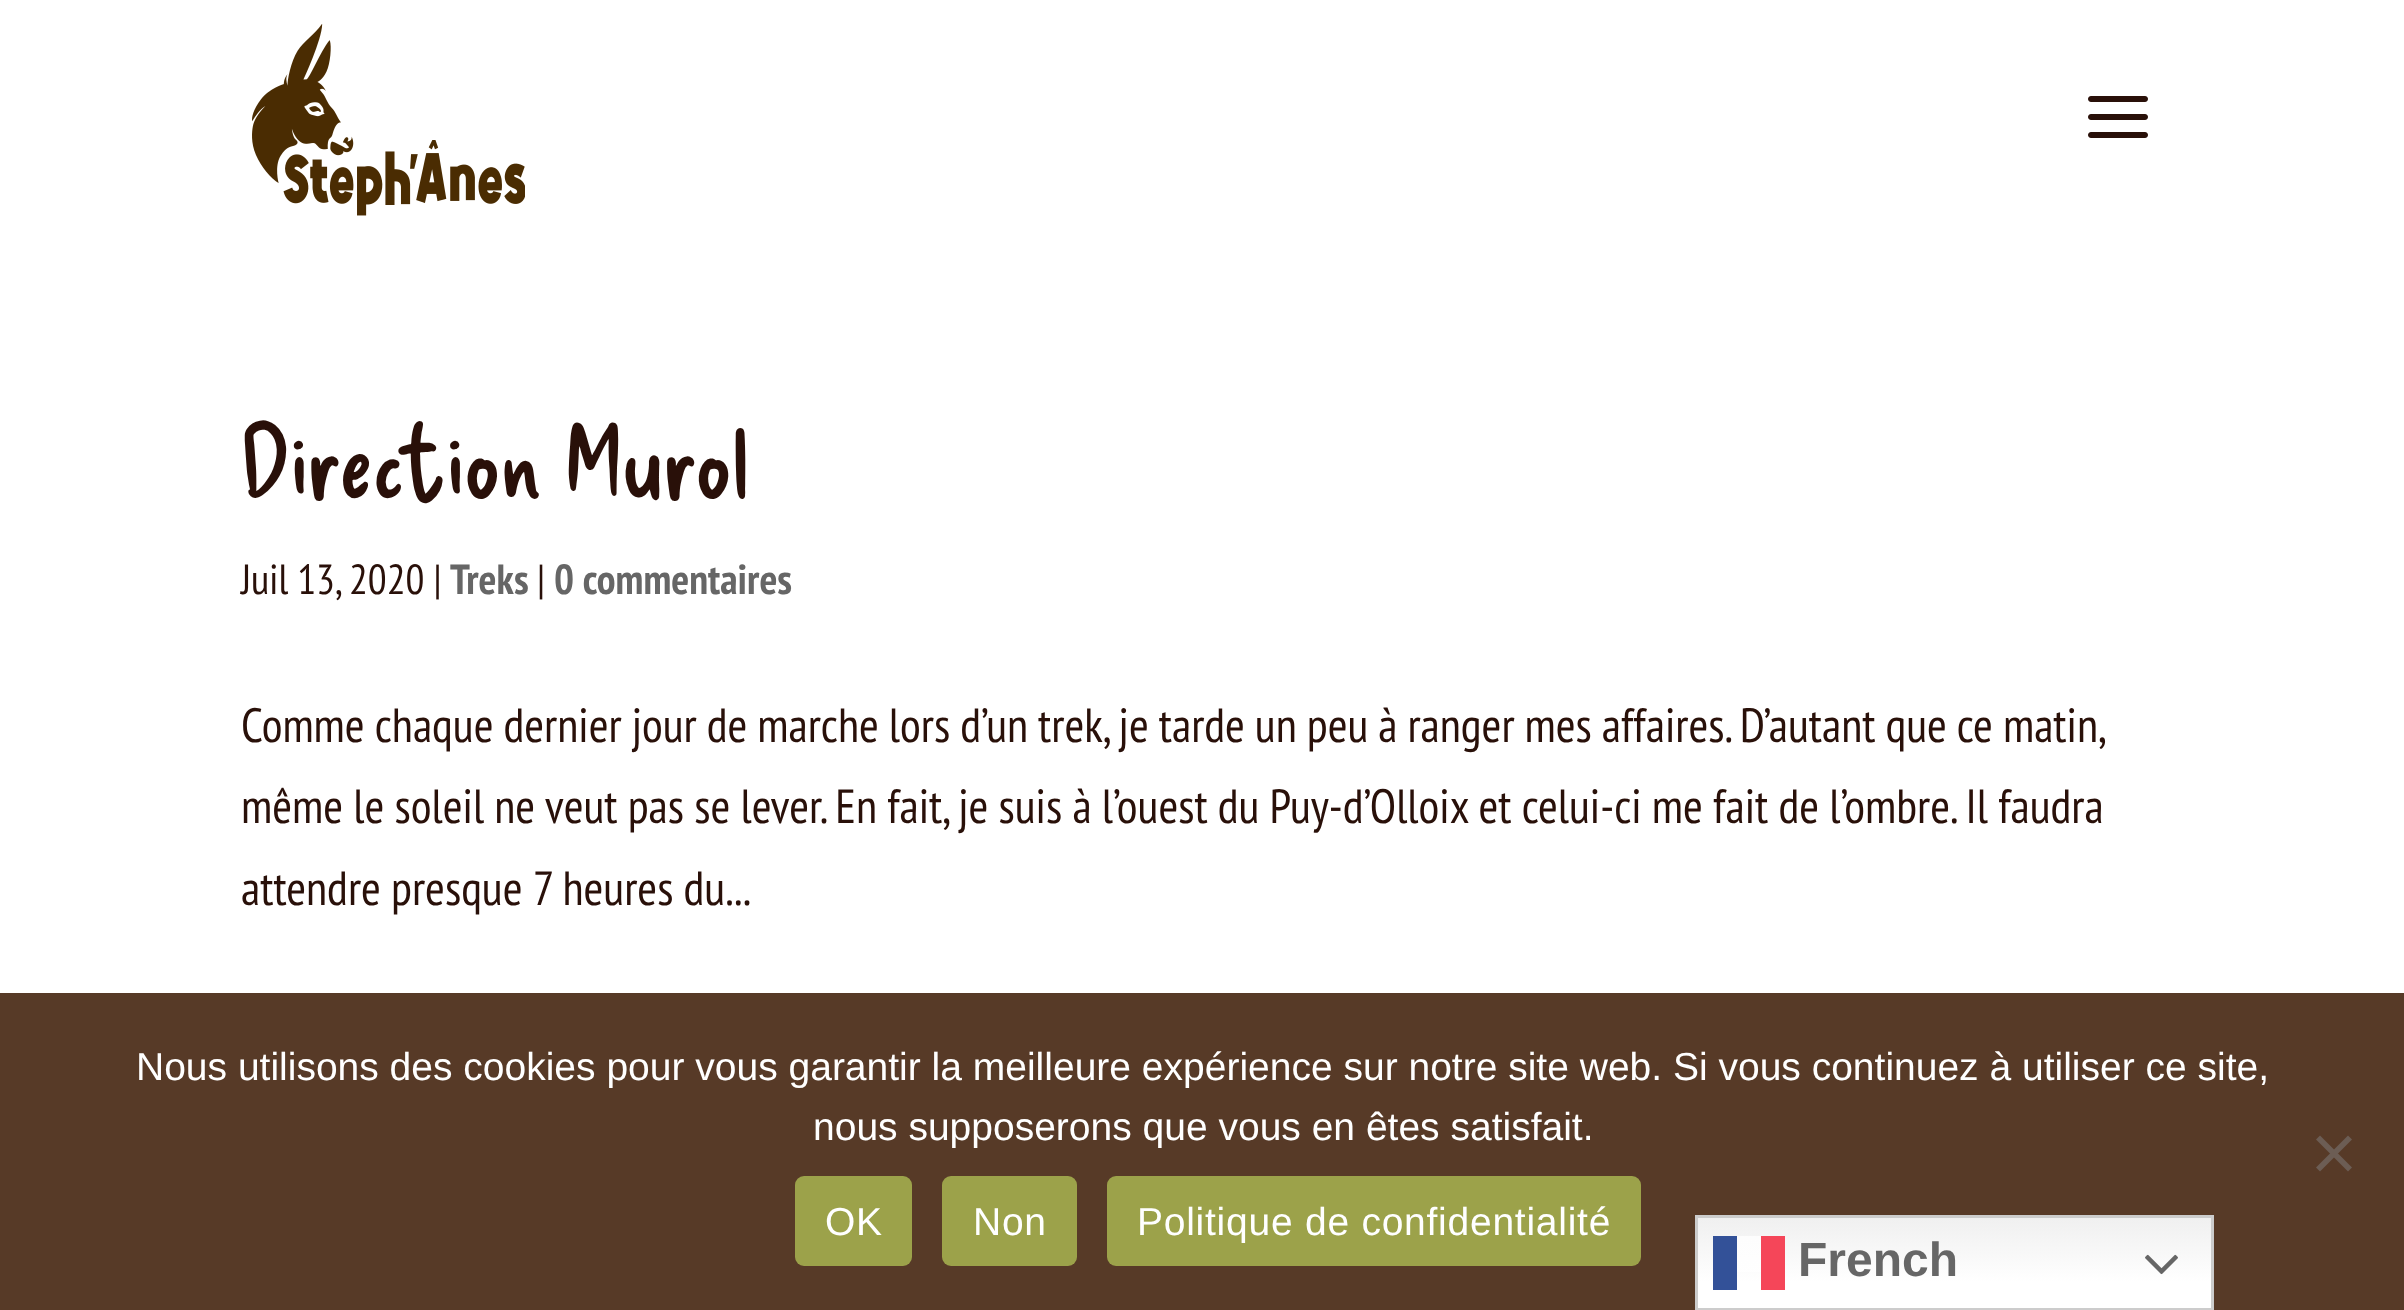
async function draw(canvas) {
  canvas.width = 2404;
  canvas.height = 1310;
  const ctx = canvas.getContext('2d');
  ctx.miterLimit = 4;
  ctx.fontKerning = 'normal';
  function label(s, x, y, font, color) {
    ctx.font = font;
    ctx.fillStyle = color;
    ctx.fillText(s, x, y);
  }
  function rect(x, y, w, h, color) {
    ctx.fillStyle = color;
    ctx.fillRect(x, y, w, h);
  }
  function roundedRect(x, y, w, h, r, color) {
    ctx.fillStyle = color;
    ctx.beginPath();
    ctx.roundRect(x, y, w, h, r);
    ctx.fill();
  }
  async function image(src, x, y, w, h) {
    const img = new Image();
    img.src = src;
    await img.decode();
    ctx.drawImage(img, x, y, w, h);
  }
  let gradient, path;

  rect(0, 0, 2404, 1310, '#fff');
  await image('assets/img1.png', 252, 24, 273, 192);
  await image('assets/img2.png', 2088, 96, 60, 42);
  label('Direction Murol', 241, 498, '99px Delicious Handrawn', '#291009');
  label('Juil 13, 2020 |', 241, 594, '42px PT Sans Narrow', '#291009');
  label('Treks', 450, 594, 'bold 42px PT Sans Narrow', '#666');
  label('|', 537, 594, '42px PT Sans Narrow', '#291009');
  label('0 commentaires', 554, 594, 'bold 42px PT Sans Narrow', '#666');
  ctx.wordSpacing = '-0.2px';
  label('Comme chaque dernier jour de marche lors d’un trek, je tarde un peu à ranger mes affaires. D’autant que ce matin,', 241, 742, '48px PT Sans Narrow', '#291009');
  ctx.wordSpacing = '0px';
  label('même le soleil ne veut pas se lever. En fait, je suis à l’ouest du Puy-d’Olloix et celui-ci me fait de l’ombre. Il faudra', 241, 823, '48px PT Sans Narrow', '#291009');
  label('attendre presque 7 heures du...', 241, 905, '48px PT Sans Narrow', '#291009');
  rect(0, 993, 2404, 317, '#573a27');
  label('Nous utilisons des cookies pour vous garantir la meilleure expérience sur notre site web. Si vous continuez à utiliser ce site,', 136, 1080, '39px Liberation Sans', '#fff');
  label('nous supposerons que vous en êtes satisfait.', 813, 1140, '39px Liberation Sans', '#fff');
  ctx.fillStyle = '#6c5d54';
  path = new Path2D('M2348 1135.5L2352 1139.5L2320 1171.5L2316 1167.5Z');
  ctx.fill(path);
  path = new Path2D('M2316 1139.5L2320 1135.5L2352 1167.5L2348 1171.5Z');
  ctx.fill(path);
  roundedRect(795, 1176, 117, 90, 9, '#9ca24a');
  ctx.letterSpacing = '0.75px';
  label('OK', 825, 1235, '39px Liberation Sans', '#fff');
  roundedRect(942, 1176, 135, 90, 9, '#9ca24a');
  label('Non', 973, 1235, '39px Liberation Sans', '#fff');
  roundedRect(1107, 1176, 534, 90, 9, '#9ca24a');
  label('Politique de confidentialité', 1137, 1235, '39px Liberation Sans', '#fff');
  gradient = ctx.createLinearGradient(1955, 1215, 1955, 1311);
  gradient.addColorStop(0, '#efefef');
  gradient.addColorStop(0.7, '#fff');
  ctx.fillStyle = gradient;
  ctx.fillRect(1698, 1218, 513, 90);
  gradient = ctx.createLinearGradient(1955, 1215, 1955, 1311);
  gradient.addColorStop(0, '#fcfcfc');
  gradient.addColorStop(0.7, '#fff');
  ctx.fillStyle = gradient;
  ctx.fillRect(1737, 1236, 24, 36);
  ctx.strokeStyle = '#ccc';
  ctx.lineWidth = 3;
  ctx.strokeRect(1696.5, 1216.5, 516, 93);
  rect(1713, 1236, 24, 54, '#335198');
  rect(1761, 1236, 24, 54, '#f54659');
  ctx.letterSpacing = '0px';
  label('French', 1798, 1276, 'bold 48px Liberation Sans', '#666');
  await image('assets/img3.png', 2145, 1254, 33, 21);
}

draw(document.querySelector('canvas'));
